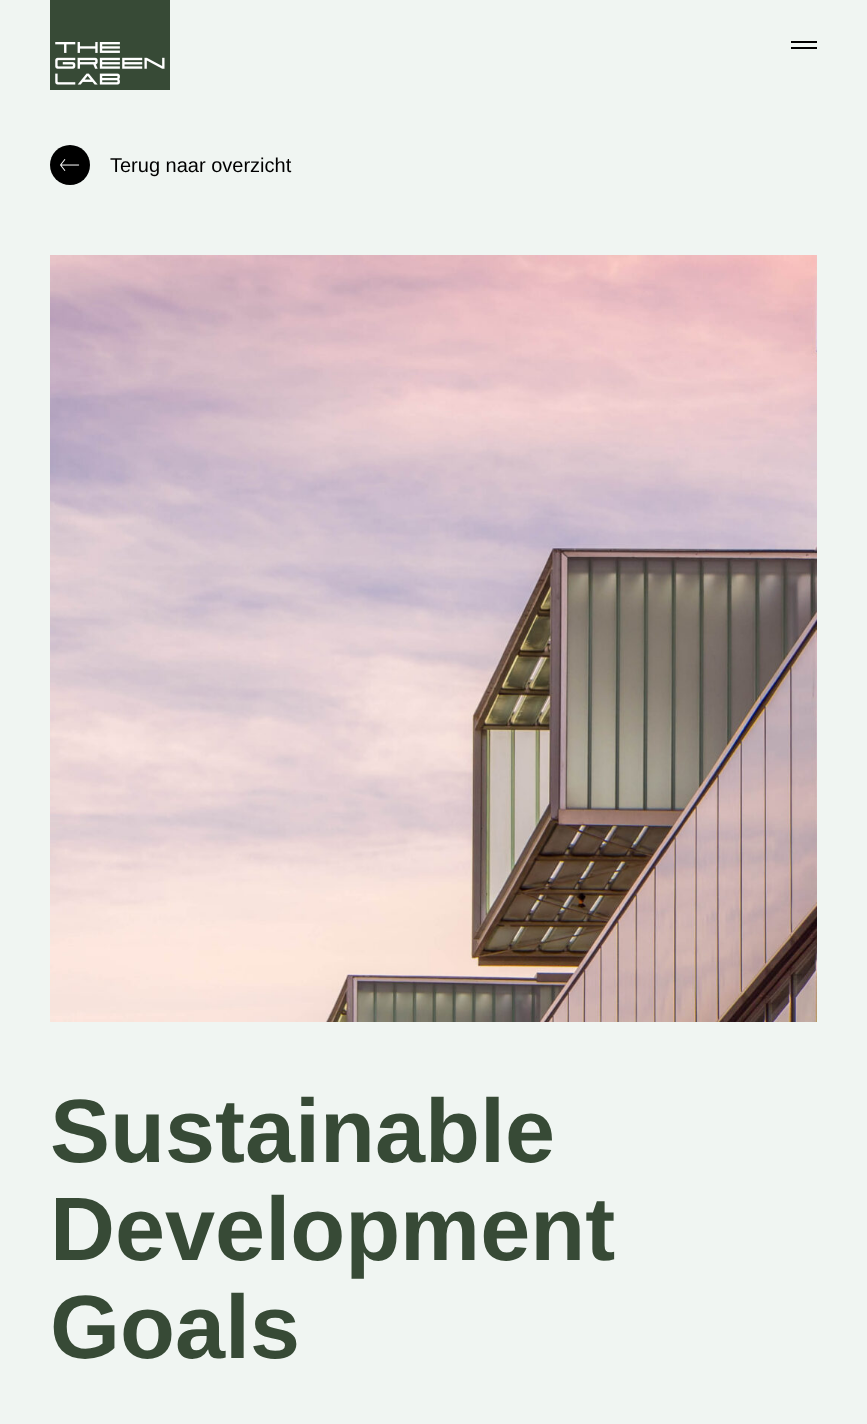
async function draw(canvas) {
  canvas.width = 867;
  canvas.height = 1424;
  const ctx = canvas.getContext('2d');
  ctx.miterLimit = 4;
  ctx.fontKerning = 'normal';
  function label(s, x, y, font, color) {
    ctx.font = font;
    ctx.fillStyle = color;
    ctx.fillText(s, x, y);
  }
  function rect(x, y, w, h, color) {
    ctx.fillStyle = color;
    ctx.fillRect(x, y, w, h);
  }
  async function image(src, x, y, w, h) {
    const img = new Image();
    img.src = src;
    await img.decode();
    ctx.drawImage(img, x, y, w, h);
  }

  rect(0, 0, 867, 1424, '#f0f5f2');
  await image('assets/img1.png', 50, 0, 120, 90);
  rect(791, 41, 26, 2, '#000');
  rect(791, 47, 26, 2, '#000');
  ctx.beginPath();
  ctx.arc(70, 165, 20, 0, 2 * Math.PI);
  ctx.fill();
  await image('assets/img2.png', 60, 159, 20, 12);
  label('Terug naar overzicht', 110, 172, '20px Liberation Sans', '#000');
  await image('assets/img3.png', 50, 255, 767, 767);
  label('Sustainable', 50, 1162, 'bold 90px Liberation Sans', '#374a36');
  label('Development', 50, 1260, 'bold 90px Liberation Sans', '#374a36');
  label('Goals', 50, 1358, 'bold 90px Liberation Sans', '#374a36');
}

draw(document.querySelector('canvas'));
